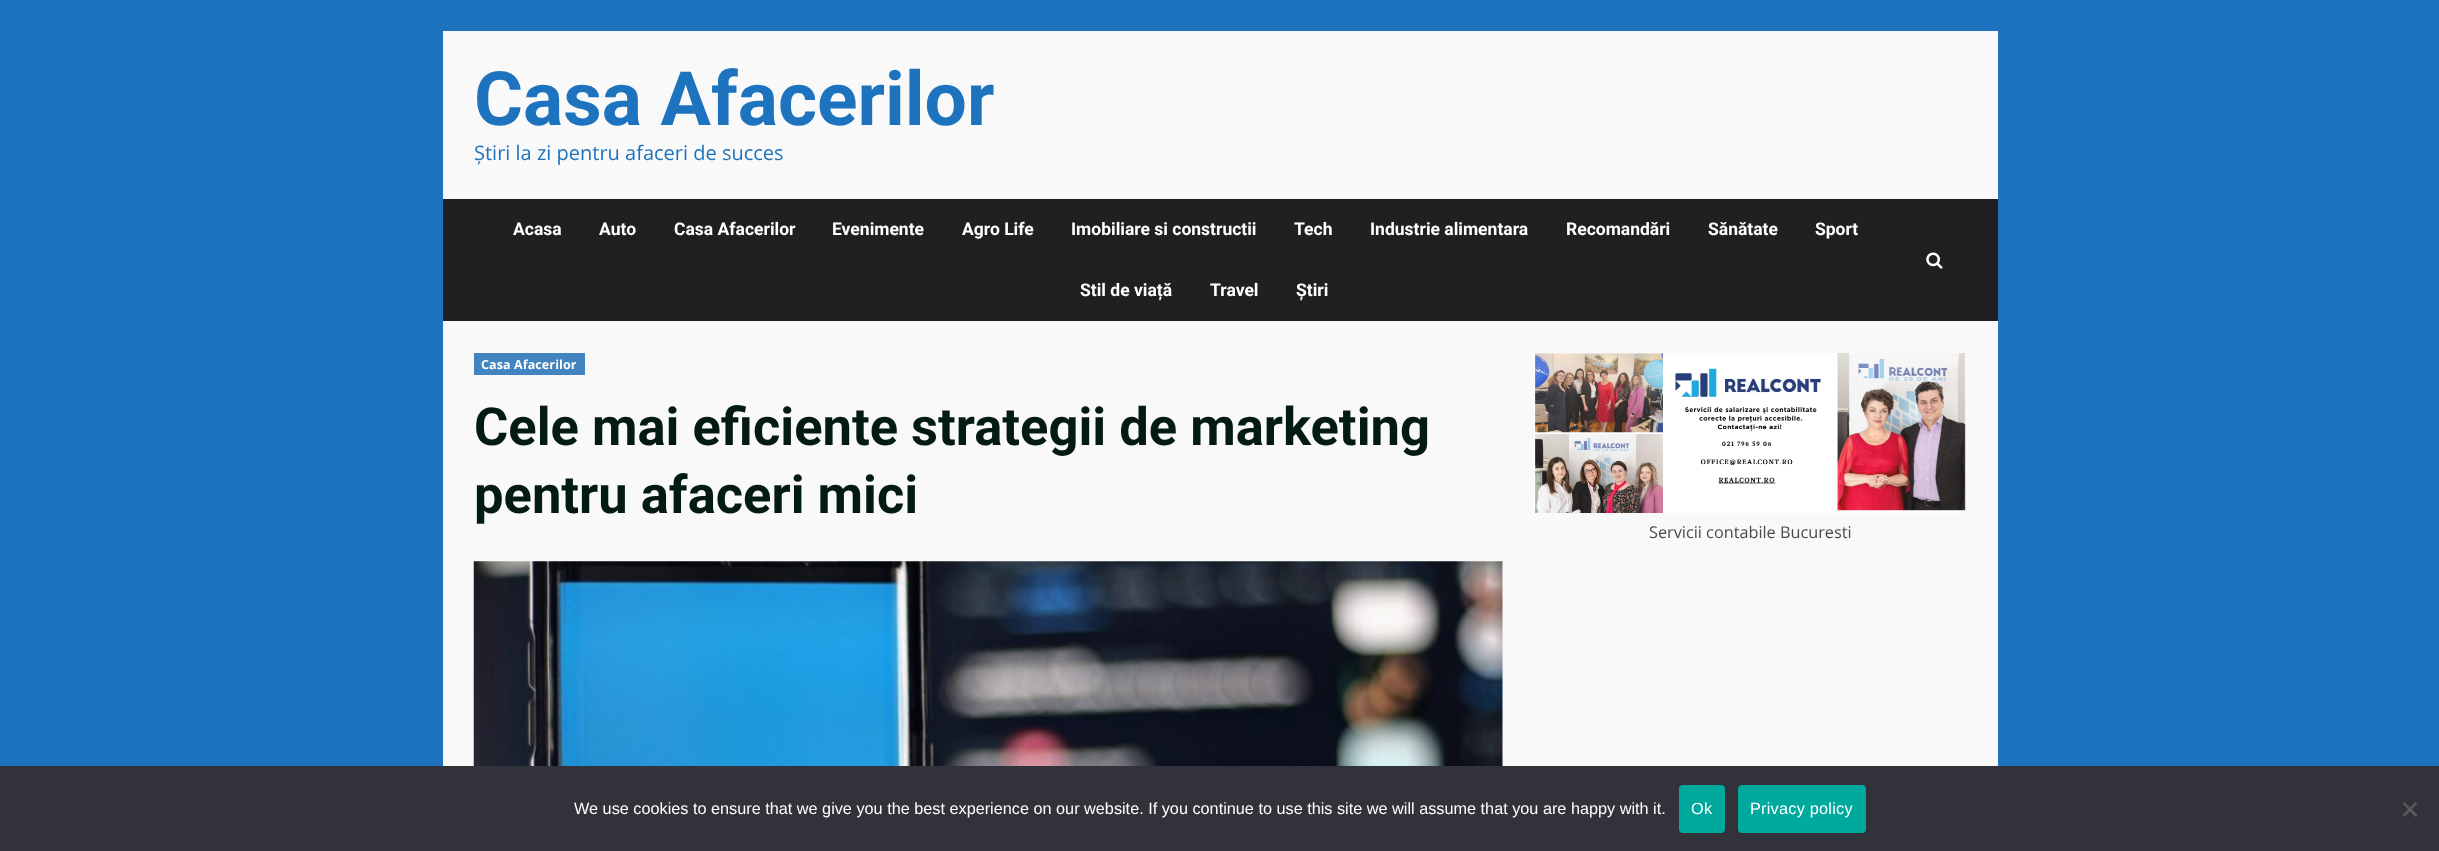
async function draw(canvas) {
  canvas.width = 2439;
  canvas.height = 851;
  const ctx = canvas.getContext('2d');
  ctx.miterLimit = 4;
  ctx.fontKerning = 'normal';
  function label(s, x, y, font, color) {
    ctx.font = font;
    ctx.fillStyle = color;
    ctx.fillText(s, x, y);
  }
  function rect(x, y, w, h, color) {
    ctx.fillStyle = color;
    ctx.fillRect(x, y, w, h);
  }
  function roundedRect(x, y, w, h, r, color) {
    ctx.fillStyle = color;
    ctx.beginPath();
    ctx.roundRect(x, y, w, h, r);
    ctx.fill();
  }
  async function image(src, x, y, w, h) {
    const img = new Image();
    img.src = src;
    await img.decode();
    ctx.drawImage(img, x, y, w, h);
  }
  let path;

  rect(0, 0, 2439, 851, '#1e73be');
  rect(443, 31, 1555, 735, '#f9f9f9');
  label('Casa Afacerilor', 474, 125, 'bold 75px Roboto', '#1e73be');
  label('Știri la zi pentru afaceri de succes', 474, 160, '20px Open Sans', '#1e73be');
  rect(443, 199, 1555, 122, '#202020');
  label('Acasa', 513, 235, 'bold 17.5px Roboto', '#fff');
  label('Auto', 599, 235, 'bold 17.5px Roboto', '#fff');
  label('Casa Afacerilor', 674, 235, 'bold 17.5px Roboto', '#fff');
  label('Evenimente', 832, 235, 'bold 17.5px Roboto', '#fff');
  label('Agro Life', 962, 235, 'bold 17.5px Roboto', '#fff');
  label('Imobiliare si constructii', 1071, 235, 'bold 17.5px Roboto', '#fff');
  label('Tech', 1294, 235, 'bold 17.5px Roboto', '#fff');
  label('Industrie alimentara', 1370, 235, 'bold 17.5px Roboto', '#fff');
  label('Recomandări', 1566, 235, 'bold 17.5px Roboto', '#fff');
  label('Sănătate', 1708, 235, 'bold 17.5px Roboto', '#fff');
  label('Sport', 1815, 235, 'bold 17.5px Roboto', '#fff');
  label('Stil de viață', 1080, 296, 'bold 17.5px Roboto', '#fff');
  label('Travel', 1210, 296, 'bold 17.5px Roboto', '#fff');
  label('Știri', 1296, 296, 'bold 17.5px Roboto', '#fff');
  await image('assets/img1.png', 1926, 252, 17, 17);
  rect(474, 353, 111, 22, '#4184bf');
  ctx.letterSpacing = '0.1px';
  label('Casa Afacerilor', 481, 369, 'bold 12.5px Open Sans', '#fff');
  ctx.letterSpacing = '0px';
  label('Cele mai eficiente strategii de marketing', 474, 445, 'bold 52.5px Roboto', '#031b11');
  label('pentru afaceri mici', 474, 513, 'bold 52.5px Roboto', '#031b11');
  await image('assets/img2.png', 473, 561, 1030, 205);
  await image('assets/img3.png', 1534, 353, 432, 160);
  label('Servicii contabile Bucuresti', 1649, 538, '16.25px Open Sans', '#4a4a4a');
  rect(0, 766, 2439, 85, '#32323a');
  label('We use cookies to ensure that we give you the best experience on our website. If you continue to use this site we will assume that you are happy with it.', 574, 814, '16.25px Liberation Sans', '#fff');
  roundedRect(1679, 785, 46, 48, 4, '#00a99d');
  ctx.letterSpacing = '0.25px';
  label('Ok', 1691, 814, '16.25px Liberation Sans', '#fff');
  roundedRect(1738, 785, 128, 48, 4, '#00a99d');
  label('Privacy policy', 1750, 814, '16.25px Liberation Sans', '#fff');
  ctx.fillStyle = '#59595d';
  path = new Path2D('M2415.5 802L2417.5 803.5L2404.5 817L2402.5 815Z');
  ctx.fill(path);
  path = new Path2D('M2402.5 803.5L2404.5 802L2417.5 815L2415.5 817Z');
  ctx.fill(path);
}

draw(document.querySelector('canvas'));
